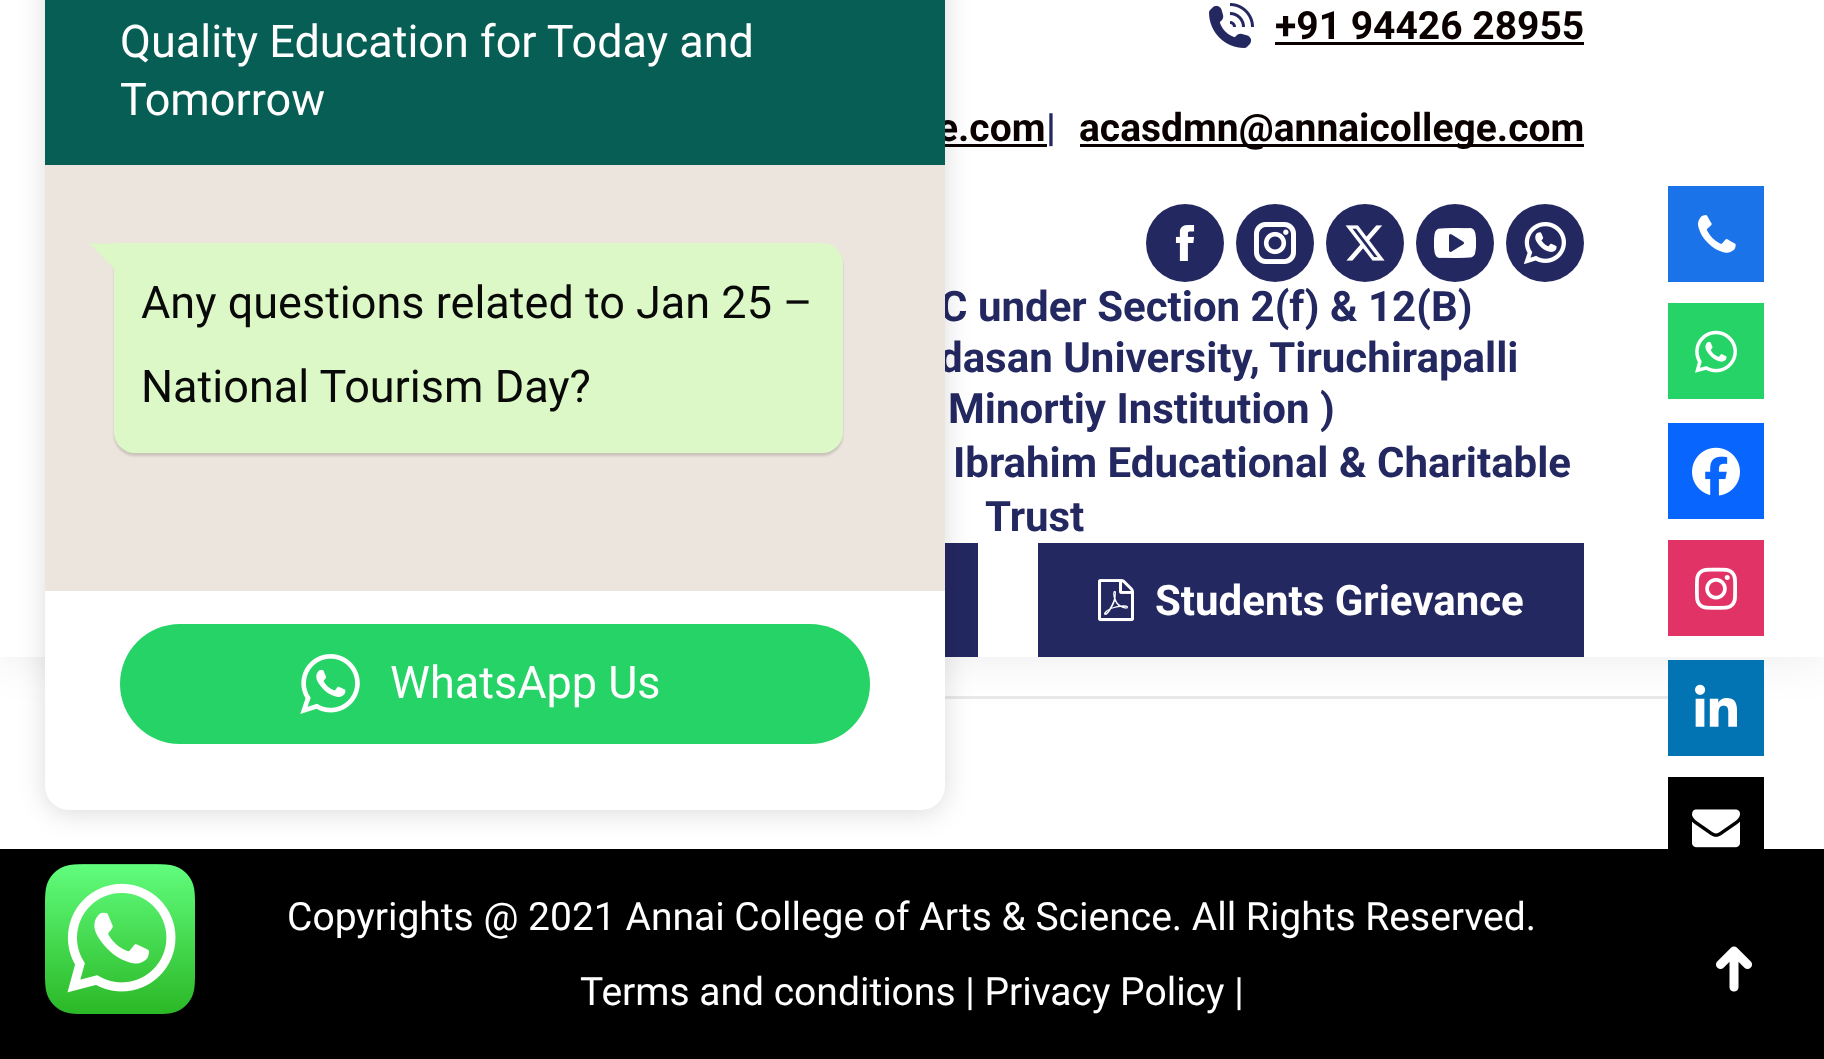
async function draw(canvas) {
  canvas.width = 1824;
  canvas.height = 1059;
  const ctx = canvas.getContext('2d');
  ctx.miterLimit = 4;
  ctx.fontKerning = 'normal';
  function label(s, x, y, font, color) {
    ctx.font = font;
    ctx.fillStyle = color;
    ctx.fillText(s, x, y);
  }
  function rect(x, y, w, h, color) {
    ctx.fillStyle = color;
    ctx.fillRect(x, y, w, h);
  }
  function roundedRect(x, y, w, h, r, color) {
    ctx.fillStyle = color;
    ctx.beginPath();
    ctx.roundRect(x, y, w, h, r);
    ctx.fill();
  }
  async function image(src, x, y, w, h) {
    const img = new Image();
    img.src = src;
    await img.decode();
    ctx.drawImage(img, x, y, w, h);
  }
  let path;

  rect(0, 0, 1824, 1059, '#fff');
  rect(945, 696, 723, 3, '#e9e9e9');
  ctx.fillStyle = '#00000012';
  ctx.filter = 'blur(22.5px)';
  ctx.beginPath();
  ctx.rect(-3, -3, 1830, 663);
  ctx.fill();
  ctx.filter = 'none';
  rect(0, 0, 1824, 657, '#fff');
  await image('assets/img1.png', 1209, 3, 45, 45);
  label('+91 94426 28955', 1275, 39, 'bold 39px Roboto', '#0a0000');
  rect(1275, 42, 309, 3, '#0a0000');
  label('e.com', 937, 141, 'bold 39px Roboto', '#0a0000');
  rect(945, 144, 102, 3, '#0a0000');
  label('|', 1046, 141, 'bold 39px Roboto', '#242861');
  rect(1080, 144, 504, 3, '#0a0000');
  label('acasdmn@annaicollege.com', 1079, 141, 'bold 39px Roboto', '#0a0000');
  ctx.fillStyle = '#242861';
  ctx.beginPath();
  ctx.arc(1185, 243, 39, 0, 2 * Math.PI);
  ctx.fill();
  await image('assets/img2.png', 1175, 225, 20, 36);
  ctx.beginPath();
  ctx.arc(1275, 243, 39, 0, 2 * Math.PI);
  ctx.fill();
  await image('assets/img3.png', 1254, 222, 42, 42);
  ctx.beginPath();
  ctx.arc(1365, 243, 39, 0, 2 * Math.PI);
  ctx.fill();
  await image('assets/img4.png', 1345, 225, 40, 36);
  ctx.beginPath();
  ctx.arc(1455, 243, 39, 0, 2 * Math.PI);
  ctx.fill();
  await image('assets/img5.png', 1434, 228, 42, 30);
  ctx.beginPath();
  ctx.arc(1545, 243, 39, 0, 2 * Math.PI);
  ctx.fill();
  await image('assets/img6.png', 1524, 222, 42, 42);
  label('C under Section 2(f) & 12(B)', 940, 321, 'bold 42px Roboto', '#242861');
  label('dasan University, Tiruchirapalli', 939, 372, 'bold 42px Roboto', '#242861');
  label('Minortiy Institution )', 948, 423, 'bold 42px Roboto', '#242861');
  label('Ibrahim Educational & Charitable', 953, 477, 'bold 42px Roboto', '#242861');
  label('Trust', 985, 531, 'bold 42px Roboto', '#242861');
  rect(945, 543, 33, 114, '#242861');
  rect(1038, 543, 546, 114, '#242861');
  await image('assets/img7.png', 1098, 579, 36, 43);
  label('Students Grievance', 1155, 615, 'bold 42px Roboto', '#fff');
  rect(0, 849, 1824, 210, '#000');
  label('Copyrights @ 2021 Annai College of Arts & Science. All Rights Reserved.', 287, 930, '39px Roboto', '#fff');
  label('Terms and conditions | Privacy Policy |', 580, 1005, '39px Roboto', '#fff');
  await image('assets/img8.png', 1716, 946, 36, 46);
  ctx.fillStyle = '#00000024';
  ctx.filter = 'blur(13.5px)';
  ctx.beginPath();
  ctx.roundRect(45, -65, 900, 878, 24);
  ctx.fill();
  ctx.filter = 'none';
  rect(45, 0, 900, 165, '#075e54');
  label('Quality Education for Today and', 120, 57, '45px Roboto', '#fff');
  label('Tomorrow', 120, 115, '45px Roboto', '#fff');
  rect(45, 165, 900, 426, '#ece5dd');
  ctx.fillStyle = '#00000024';
  ctx.filter = 'blur(1px)';
  ctx.beginPath();
  ctx.roundRect(114, 246, 729, 210, 21);
  ctx.fill();
  ctx.filter = 'none';
  ctx.fillStyle = '#dcf8c6';
  ctx.beginPath();
  ctx.roundRect(114, 243, 729, 210, [0, 21, 21, 21]);
  ctx.fill();
  path = new Path2D('M90 244L116 270.5V243.5H90Z');
  ctx.fill(path);
  label('Any questions related to Jan 25 –', 141, 318, '45px Roboto', '#0a0909');
  label('National Tourism Day?', 141, 402, '45px Roboto', '#0a0909');
  rect(45, 591, 900, 177, '#fff');
  roundedRect(120, 624, 750, 120, 60, '#25d366');
  await image('assets/img9.png', 300, 654, 60, 60);
  label('WhatsApp Us', 390, 698, '45px Roboto', '#fff');
  ctx.beginPath();
  ctx.roundRect(45, 768, 900, 42, [0, 0, 24, 24]);
  ctx.fill();
  await image('assets/img10.png', 45, 864, 150, 150);
  rect(1668, 186, 96, 96, '#1a73e8');
  await image('assets/img11.png', 1698, 215, 38, 38);
  rect(1668, 303, 96, 96, '#25d366');
  await image('assets/img12.png', 1695, 330, 42, 43);
  rect(1668, 423, 96, 96, '#0866ff');
  await image('assets/img13.png', 1692, 447, 48, 49);
  rect(1668, 540, 96, 96, '#e23367');
  await image('assets/img14.png', 1695, 567, 42, 43);
  rect(1668, 660, 96, 96, '#0274b3');
  await image('assets/img15.png', 1695, 684, 42, 43);
  rect(1668, 777, 96, 72, '#000');
  await image('assets/img16.png', 1692, 809, 48, 39);
}

draw(document.querySelector('canvas'));
